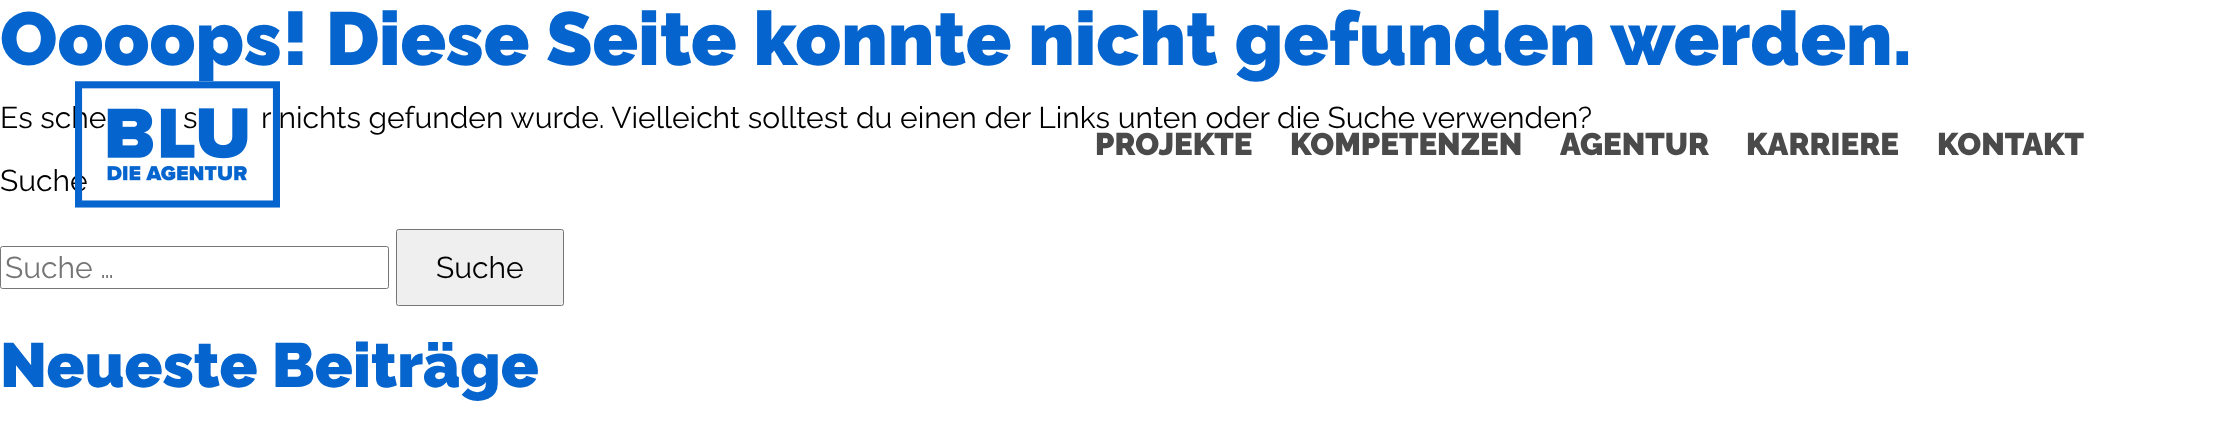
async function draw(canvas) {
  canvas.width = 2215;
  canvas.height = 423;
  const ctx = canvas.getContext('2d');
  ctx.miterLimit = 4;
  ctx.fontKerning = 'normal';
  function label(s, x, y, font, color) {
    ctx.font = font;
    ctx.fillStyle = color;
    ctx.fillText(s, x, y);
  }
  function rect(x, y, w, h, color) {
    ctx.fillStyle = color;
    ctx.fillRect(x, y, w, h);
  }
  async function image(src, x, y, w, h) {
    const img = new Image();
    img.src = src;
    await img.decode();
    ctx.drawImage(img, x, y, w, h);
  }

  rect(0, 0, 2215, 423, '#fff');
  label('Oooops! Diese Seite konnte nicht gefunden werden.', 0, 65, '100 75px Raleway', '#0564cd');
  label('Es sche', 0, 128, '100 30px "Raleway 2"', '#000');
  label('s', 183, 128, '100 30px "Raleway 2"', '#000');
  label('r nichts gefunden wurde. Vielleicht solltest du einen der Links unten oder die Suche verwenden?', 261, 128, '100 30px "Raleway 2"', '#000');
  label('Suche', 0, 191, '100 30px "Raleway 2"', '#000');
  ctx.beginPath();
  ctx.roundRect(0.5, 246.5, 388, 42, 2);
  ctx.strokeStyle = '#767676';
  ctx.stroke();
  label('Suche …', 5, 278, '100 30px "Raleway 2"', '#757575');
  ctx.fillStyle = '#efefef';
  ctx.beginPath();
  ctx.roundRect(396.5, 229.5, 167, 76, 2);
  ctx.fill();
  ctx.stroke();
  label('Suche', 436, 278, '100 30px "Raleway 2"', '#000');
  label('Neueste Beiträge', 0, 387, '100 62.5px Raleway', '#0564cd');
  await image('assets/img1.png', 75, 81, 205, 127);
  label('PROJEKTE', 1095, 155, '100 31.25px Raleway', '#4a4a4a');
  label('KOMPETENZEN', 1290, 155, '100 31.25px Raleway', '#4a4a4a');
  label('AGENTUR', 1560, 155, '100 31.25px Raleway', '#4a4a4a');
  label('KARRIERE', 1746, 155, '100 31.25px Raleway', '#4a4a4a');
  label('KONTAKT', 1937, 155, '100 31.25px Raleway', '#4a4a4a');
}

draw(document.querySelector('canvas'));
